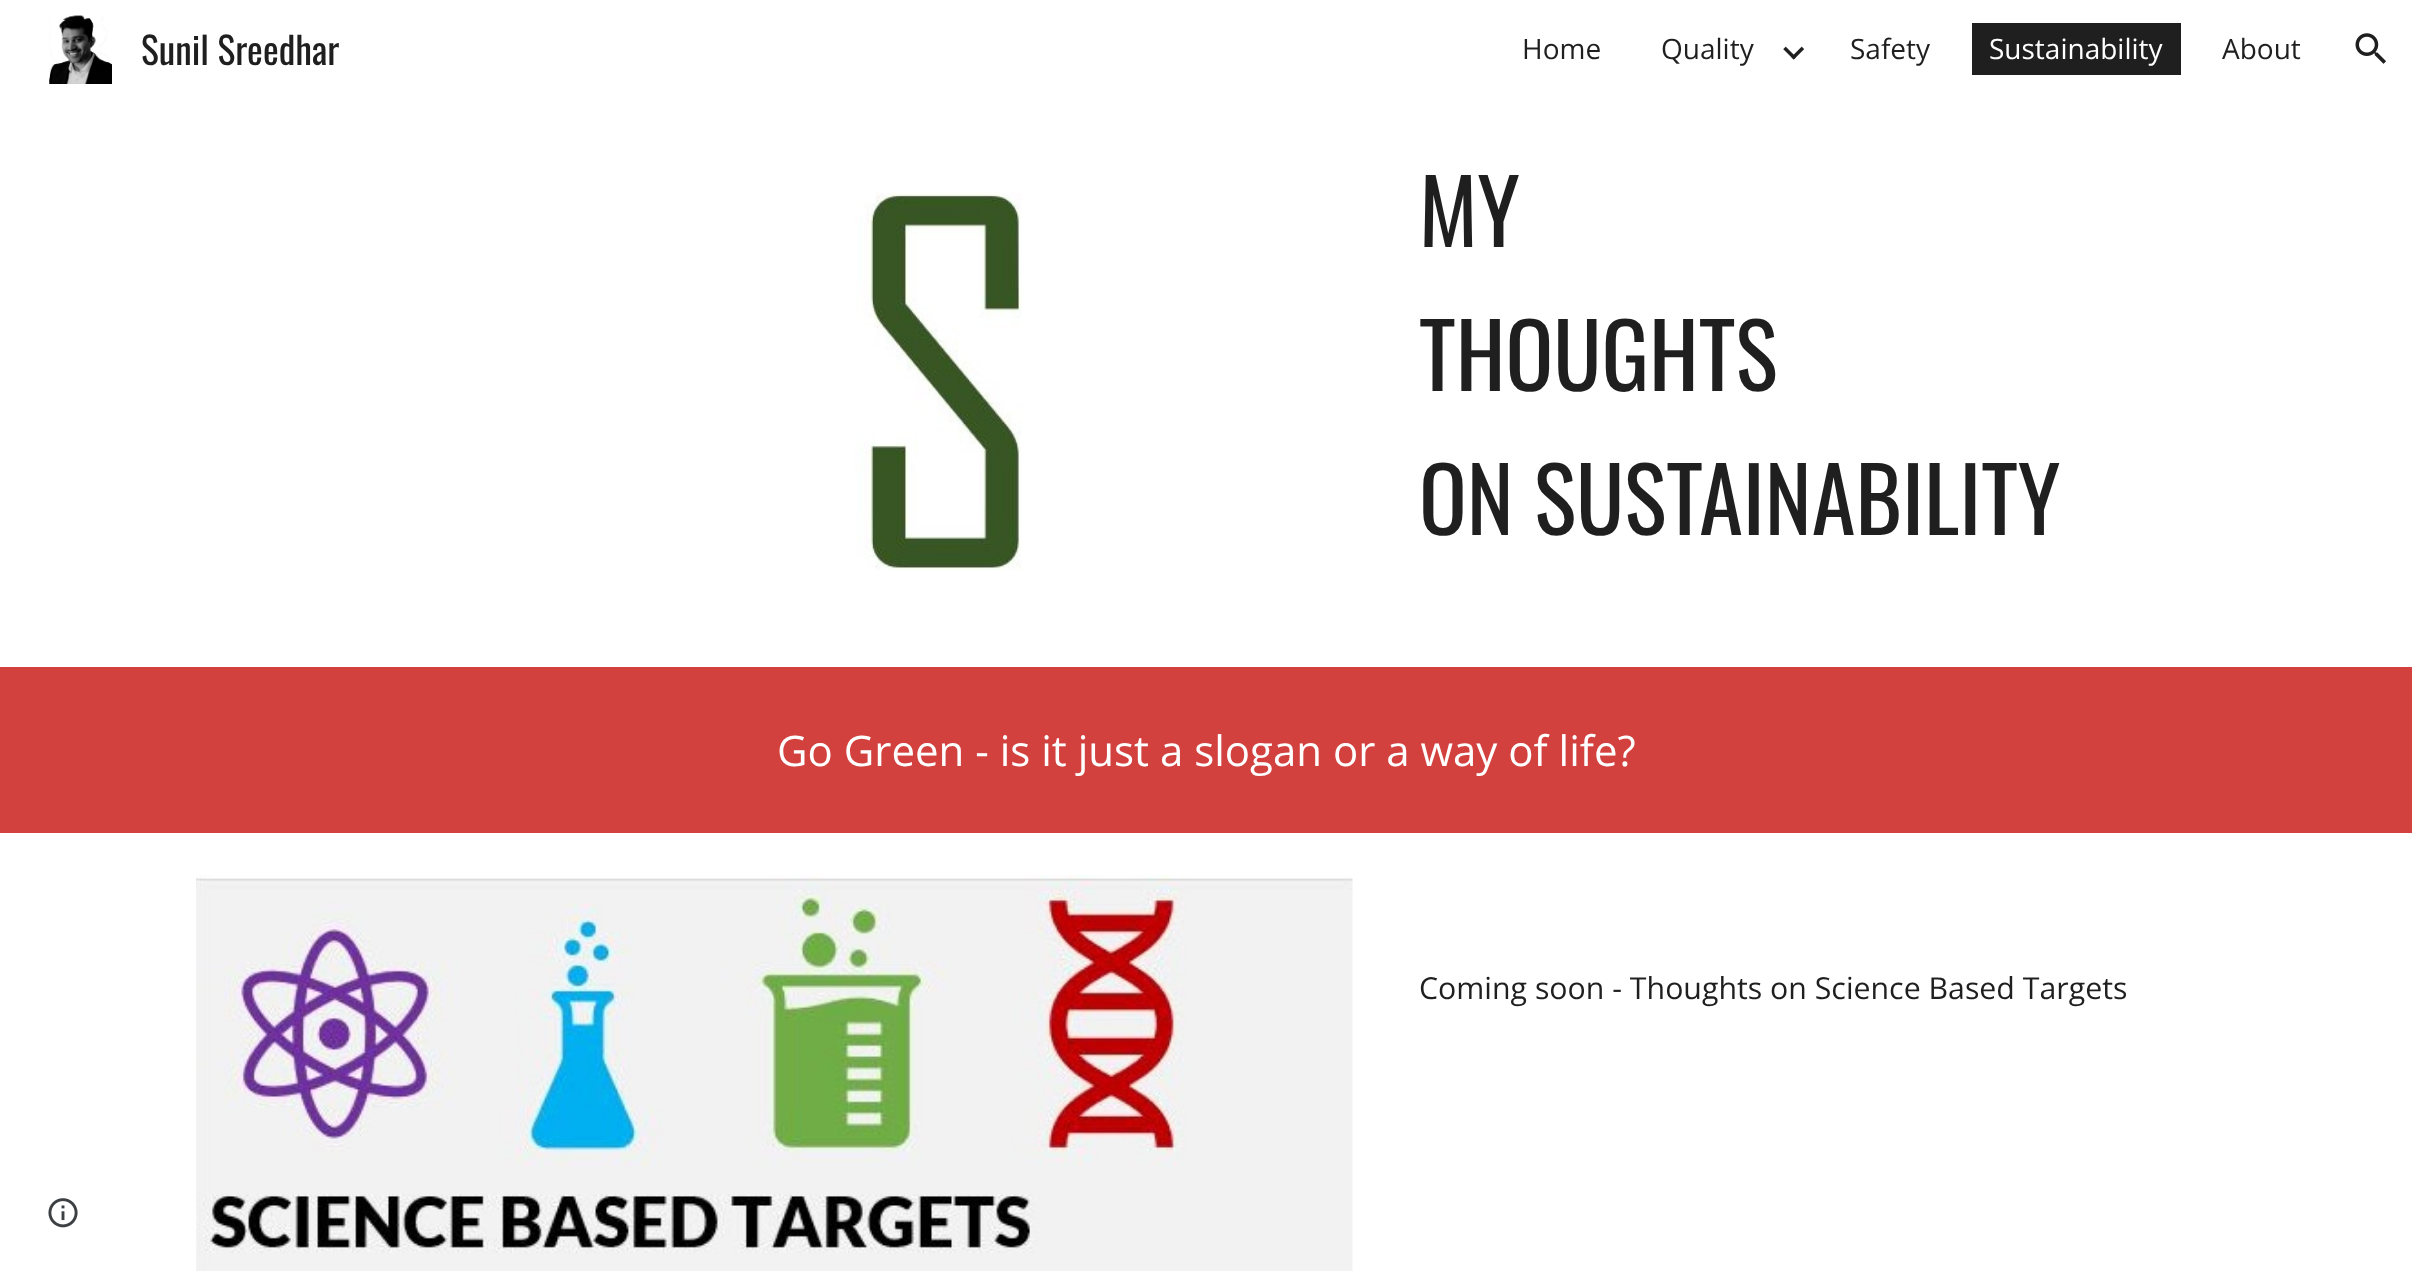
async function draw(canvas) {
  canvas.width = 2412;
  canvas.height = 1271;
  const ctx = canvas.getContext('2d');
  ctx.miterLimit = 4;
  ctx.fontKerning = 'normal';
  function label(s, x, y, font, color) {
    ctx.font = font;
    ctx.fillStyle = color;
    ctx.fillText(s, x, y);
  }
  function rect(x, y, w, h, color) {
    ctx.fillStyle = color;
    ctx.fillRect(x, y, w, h);
  }
  async function image(src, x, y, w, h) {
    const img = new Image();
    img.src = src;
    await img.decode();
    ctx.drawImage(img, x, y, w, h);
  }

  rect(0, 0, 2412, 1271, '#fff');
  await image('assets/img1.png', 49, 15, 63, 69);
  label('Sunil Sreedhar', 141, 65, '37.5px Oswald', '#1f1f1f');
  label('Home', 1522, 59, '28px Open Sans', '#1f1f1f');
  label('Quality', 1661, 59, '28px Open Sans', '#1f1f1f');
  await image('assets/img2.png', 1783, 46, 22, 14);
  label('Safety', 1850, 59, '28px Open Sans', '#1f1f1f');
  rect(1972, 23, 209, 52, '#1f1f1f');
  label('Sustainability', 1989, 59, '28px Open Sans', '#fff');
  label('About', 2222, 59, '28px Open Sans', '#1f1f1f');
  await image('assets/img3.png', 2355, 33, 31, 31);
  await image('assets/img4.png', 855, 192, 167, 379);
  label('MY', 1419, 247, '88.75px Oswald', '#1f1f1f');
  label('THOUGHTS', 1419, 391, '88.75px Oswald', '#1f1f1f');
  label('ON SUSTAINABILITY', 1419, 535, '88.75px Oswald', '#1f1f1f');
  rect(0, 667, 2412, 166, '#d3413f');
  label('Go Green - is it just a slogan or a way of life?', 777, 766, '42px Open Sans', '#fff');
  await image('assets/img5.png', 196, 875, 1157, 396);
  label('Coming soon - Thoughts on Science Based Targets', 1419, 999, '30.3px Open Sans', '#1f1f1f');
  await image('assets/img6.png', 48, 1198, 30, 30);
}

draw(document.querySelector('canvas'));
